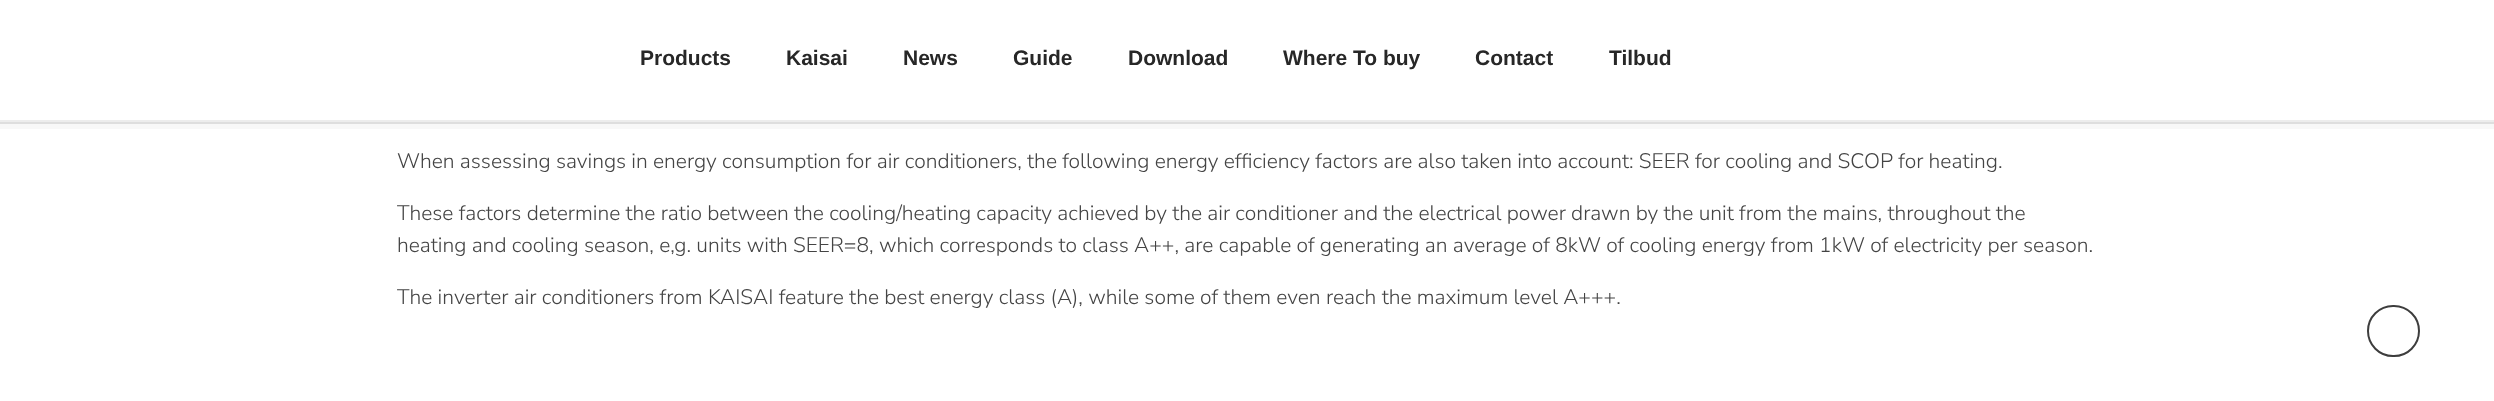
async function draw(canvas) {
  canvas.width = 2494;
  canvas.height = 401;
  const ctx = canvas.getContext('2d');
  ctx.miterLimit = 4;
  ctx.fontKerning = 'normal';
  function label(s, x, y, font, color) {
    ctx.font = font;
    ctx.fillStyle = color;
    ctx.fillText(s, x, y);
  }
  function rect(x, y, w, h, color) {
    ctx.fillStyle = color;
    ctx.fillRect(x, y, w, h);
  }
  let path;

  rect(0, 0, 2494, 401, '#fff');
  ctx.fillStyle = '#f8f8f8';
  path = new Path2D('M0 123V129H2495V6H2494V123Z');
  ctx.fill(path);
  rect(0, 122, 2494, 2, '#dedede');
  rect(0, 120, 2494, 2, '#ededed');
  label('Products', 640, 65, 'bold 21px Liberation Sans', '#272727');
  label('Kaisai', 786, 65, 'bold 21px Liberation Sans', '#272727');
  label('News', 903, 65, 'bold 21px Liberation Sans', '#272727');
  label('Guide', 1013, 65, 'bold 21px Liberation Sans', '#272727');
  label('Download', 1128, 65, 'bold 21px Liberation Sans', '#272727');
  label('Where To buy', 1283, 65, 'bold 21px Liberation Sans', '#272727');
  label('Contact', 1475, 65, 'bold 21px Liberation Sans', '#272727');
  label('Tilbud', 1609, 65, 'bold 21px Liberation Sans', '#272727');
  label('When assessing savings in energy consumption for air conditioners, the following energy efficiency factors are also taken into account: SEER for cooling and SCOP for heating.', 397, 168, '300 21px Nunito Sans', '#444');
  label('These factors determine the ratio between the cooling/heating capacity achieved by the air conditioner and the electrical power drawn by the unit from the mains, throughout the', 397, 220, '300 21px Nunito Sans', '#444');
  label('heating and cooling season, e,g. units with SEER=8, which corresponds to class A++, are capable of generating an average of 8kW of cooling energy from 1kW of electricity per season.', 397, 252, '300 21px Nunito Sans', '#444');
  label('The inverter air conditioners from KAISAI feature the best energy class (A), while some of them even reach the maximum level A+++.', 397, 304, '300 21px Nunito Sans', '#444');
  ctx.beginPath();
  ctx.roundRect(2368, 306, 51, 50, 25);
  ctx.strokeStyle = '#3d3d3d';
  ctx.lineWidth = 2;
  ctx.stroke();
}

draw(document.querySelector('canvas'));
